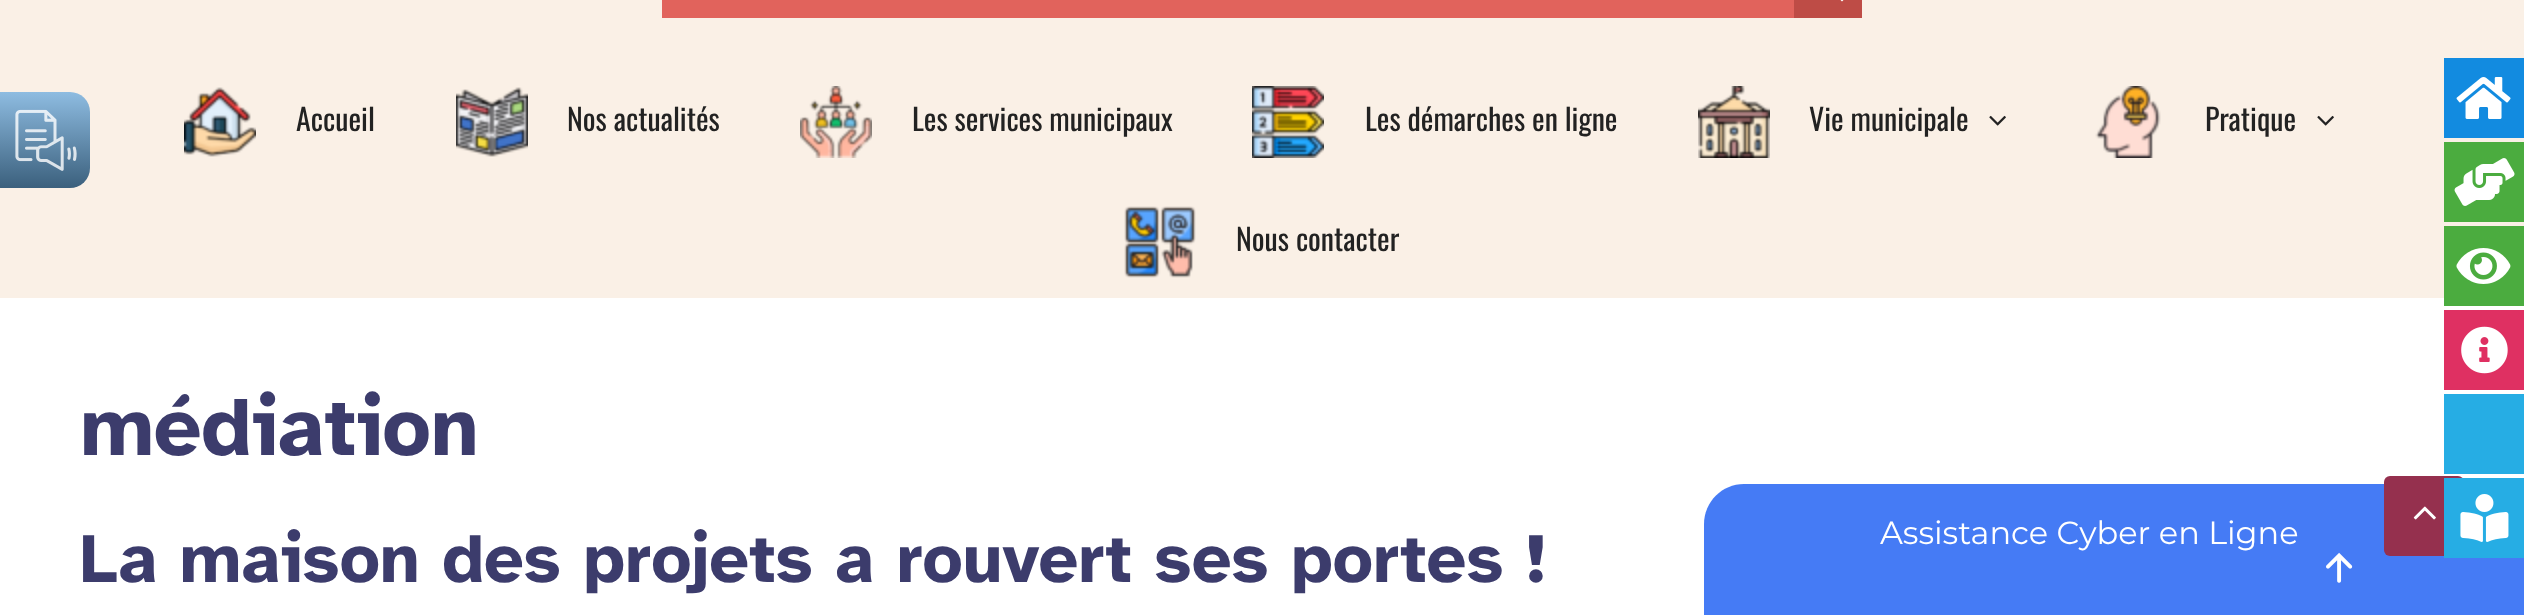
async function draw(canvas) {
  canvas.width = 2524;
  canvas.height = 615;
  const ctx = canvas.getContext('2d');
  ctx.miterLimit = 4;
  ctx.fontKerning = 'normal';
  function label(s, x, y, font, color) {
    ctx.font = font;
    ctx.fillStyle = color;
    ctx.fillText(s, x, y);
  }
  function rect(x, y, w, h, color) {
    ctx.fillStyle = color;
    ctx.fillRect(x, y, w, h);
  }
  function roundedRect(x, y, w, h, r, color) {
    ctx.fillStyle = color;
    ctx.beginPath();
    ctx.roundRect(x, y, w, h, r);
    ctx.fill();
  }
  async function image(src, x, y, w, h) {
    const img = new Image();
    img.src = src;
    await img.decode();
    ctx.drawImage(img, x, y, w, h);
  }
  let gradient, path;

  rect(0, 0, 2524, 615, '#faf0e6');
  rect(662, 0, 1132, 18, '#e1635c');
  rect(1794, 0, 68, 18, '#be4c46');
  ctx.fillStyle = '#fff';
  path = new Path2D('M1845.5-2L1836.5-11C1846.5-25 1827.5-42 1814.5-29.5C1802-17 1819 2 1833-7.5L1842 1.5ZM1814.5-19.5C1814.5-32.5 1835-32.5 1835-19.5C1835-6 1814.5-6 1814.5-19.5Z');
  ctx.fill(path);
  gradient = ctx.createLinearGradient(45, 92, 45, 188);
  gradient.addColorStop(0, '#8ebce1');
  gradient.addColorStop(1, '#3b607d');
  ctx.fillStyle = gradient;
  ctx.beginPath();
  ctx.roundRect(0, 92, 90, 96, [0, 20, 20, 0]);
  ctx.fill();
  await image('assets/img1.png', 15, 109, 62, 62);
  await image('assets/img2.png', 184, 87, 72, 70);
  label('Accueil', 296, 131, '30px Oswald', '#222');
  await image('assets/img3.png', 456, 87, 72, 70);
  label('Nos actualités', 567, 131, '30px Oswald', '#222');
  await image('assets/img4.png', 800, 86, 72, 72);
  label('Les services municipaux', 912, 131, '30px Oswald', '#222');
  await image('assets/img5.png', 1252, 86, 72, 72);
  label('Les démarches en ligne', 1365, 131, '30px Oswald', '#222');
  await image('assets/img6.png', 1698, 86, 72, 72);
  label('Vie municipale', 1809, 131, '30px Oswald', '#222');
  await image('assets/img7.png', 1989, 115, 17, 11);
  await image('assets/img8.png', 2095, 86, 66, 72);
  label('Pratique', 2205, 131, '30px Oswald', '#222');
  await image('assets/img7.png', 2317, 115, 17, 11);
  await image('assets/img9.png', 1124, 206, 72, 72);
  label('Nous contacter', 1236, 251, '30px Oswald', '#222');
  rect(2444, 58, 80, 80, '#128be0');
  await image('assets/img10.png', 2456, 77, 55, 42);
  rect(2444, 142, 80, 80, '#4bac3f');
  await image('assets/img11.png', 2454, 158, 61, 48);
  rect(0, 298, 2524, 317, '#fff');
  rect(2444, 226, 80, 80, '#4bac3f');
  await image('assets/img12.png', 2456, 248, 55, 36);
  rect(2444, 310, 80, 80, '#df3062');
  await image('assets/img13.png', 2461, 326, 47, 48);
  rect(2444, 394, 80, 80, '#26ade4');
  ctx.fillStyle = '#457bf5';
  path = new Path2D('M1744 484H2484C2506 484 2524 502 2524 524V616H1704V524C1704 502 1722 484 1744 484Z');
  ctx.fill(path);
  roundedRect(2384, 476, 80, 80, 6, '#95304e');
  rect(2444, 478, 80, 80, '#26ade4');
  await image('assets/img14.png', 2460, 494, 49, 48);
  label('médiation', 80, 455, 'bold 84px Atkinson Hyperlegible', '#3c3c6c');
  label('La maison des projets a rouvert ses portes !', 80, 582, 'bold 70px Atkinson Hyperlegible', '#3c3c6c');
  label('Assistance Cyber en Ligne', 1880, 544, '32px Montserrat', '#fff');
  await image('assets/img15.png', 2326, 552, 27, 31);
  await image('assets/img16.png', 2413, 506, 23, 14);
}

draw(document.querySelector('canvas'));
